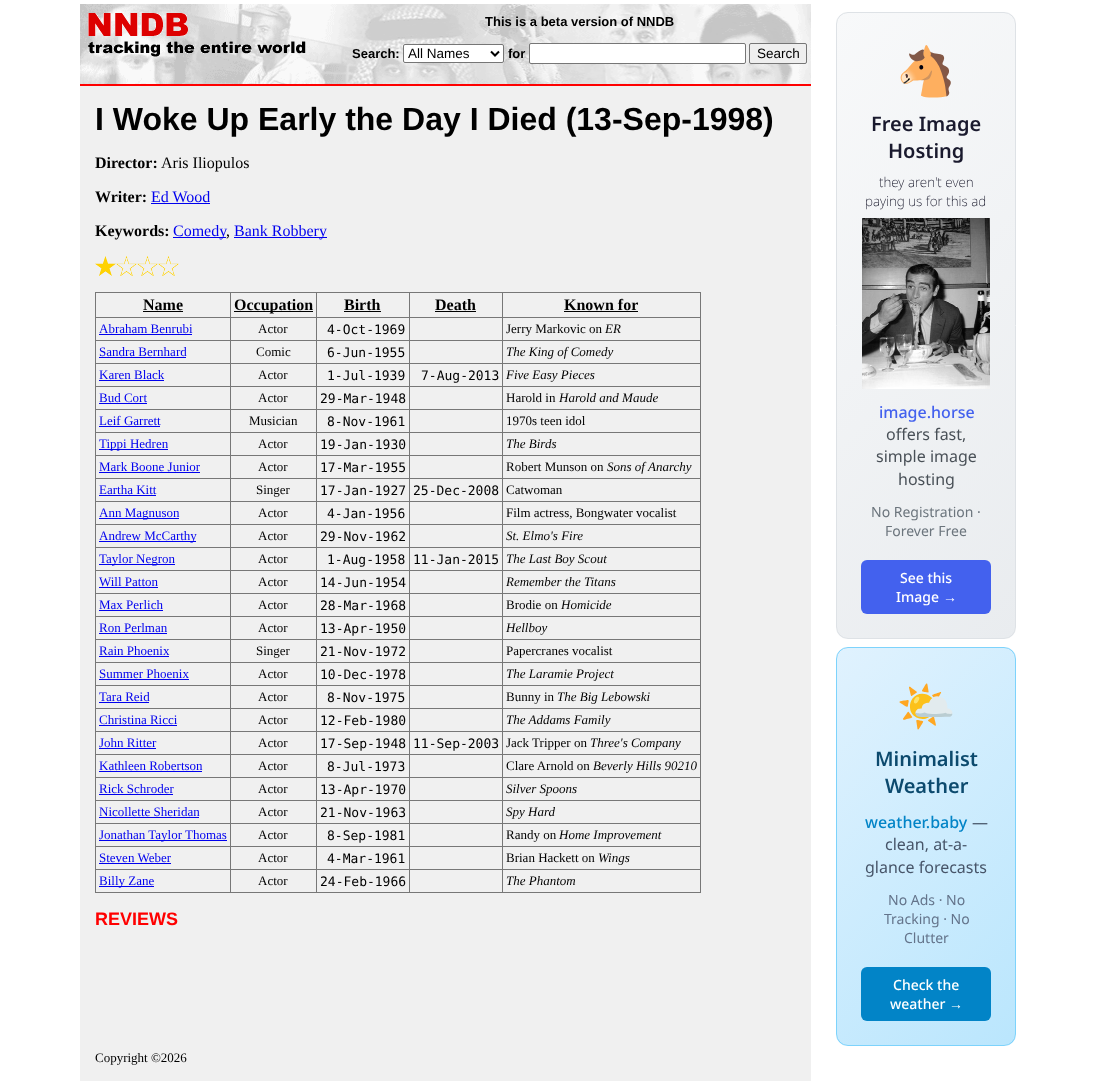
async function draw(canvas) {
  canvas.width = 1096;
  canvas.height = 1082;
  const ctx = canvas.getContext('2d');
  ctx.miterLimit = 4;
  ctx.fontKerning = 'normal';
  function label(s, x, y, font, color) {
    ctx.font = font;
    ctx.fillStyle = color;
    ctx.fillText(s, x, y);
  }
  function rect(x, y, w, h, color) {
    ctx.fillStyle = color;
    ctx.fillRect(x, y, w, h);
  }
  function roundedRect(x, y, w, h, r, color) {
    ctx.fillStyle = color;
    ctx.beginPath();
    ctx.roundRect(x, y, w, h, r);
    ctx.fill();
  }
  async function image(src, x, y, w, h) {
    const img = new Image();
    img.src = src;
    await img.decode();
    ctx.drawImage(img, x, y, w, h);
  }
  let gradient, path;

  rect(0, 0, 1096, 1082, '#fff');
  await image('assets/img1.png', 80, 4, 731, 80);
  await image('assets/img2.png', 88, 13, 218, 44);
  label('This is a beta version of NNDB', 485, 26, 'bold 13px Liberation Sans', '#000');
  label('Search:', 352, 58, 'bold 13px Liberation Sans', '#000');
  ctx.fillStyle = '#fff';
  ctx.beginPath();
  ctx.roundRect(403.5, 44.5, 100, 18, 1.5);
  ctx.fill();
  ctx.strokeStyle = '#767676';
  ctx.stroke();
  path = new Path2D('M491 51.5L495 55.5L499 51.5');
  ctx.strokeStyle = '#000';
  ctx.lineWidth = 2;
  ctx.stroke(path);
  label('All Names', 408, 58, '13.5px Liberation Sans', '#000');
  label('for', 508, 58, 'bold 13px Liberation Sans', '#000');
  ctx.fillStyle = '#fff';
  ctx.beginPath();
  ctx.roundRect(529.5, 43.5, 216, 20, 1.5);
  ctx.fill();
  ctx.strokeStyle = '#767676';
  ctx.lineWidth = 1;
  ctx.stroke();
  ctx.fillStyle = '#efefef';
  ctx.beginPath();
  ctx.roundRect(749.5, 43.5, 57, 20, 1.5);
  ctx.fill();
  ctx.stroke();
  label('Search', 757, 58, '13.5px Liberation Sans', '#000');
  rect(80, 84, 731, 2, '#f00');
  rect(80, 86, 731, 995, '#f0f0f0');
  label('I Woke Up Early the Day I Died (13-Sep-1998)', 95, 130, 'bold 32px Liberation Sans', '#000');
  label('Director:', 95, 168, 'bold 16px Liberation Serif', '#000');
  label('Aris Iliopulos', 161, 168, '16px Liberation Serif', '#000');
  label('Writer:', 95, 202, 'bold 16px Liberation Serif', '#000');
  label('Ed Wood', 151, 202, '16px Liberation Serif', '#00e');
  rect(151, 203, 59, 1, '#00e');
  label('Keywords:', 95, 236, 'bold 16px Liberation Serif', '#000');
  rect(173, 237, 53, 1, '#00e');
  label('Comedy', 173, 236, '16px Liberation Serif', '#00e');
  label(',', 226, 236, '16px Liberation Serif', '#000');
  rect(234, 237, 93, 1, '#00e');
  label('Bank Robbery', 234, 236, '16px Liberation Serif', '#00e');
  await image('assets/img3.png', 95, 256, 21, 20);
  await image('assets/img4.png', 116, 256, 21, 20);
  await image('assets/img4.png', 137, 256, 21, 20);
  await image('assets/img4.png', 158, 256, 21, 20);
  rect(95, 292, 606, 1, '#777');
  rect(700, 292, 1, 601, '#777');
  rect(95, 892, 606, 1, '#777');
  rect(95, 292, 1, 601, '#777');
  label('Name', 143, 310, 'bold 16px Liberation Serif', '#000');
  rect(143, 311, 40, 1, '#000');
  rect(502, 317, 199, 1, '#777');
  rect(502, 340, 199, 1, '#777');
  rect(502, 363, 199, 1, '#777');
  rect(502, 386, 199, 1, '#777');
  rect(502, 409, 199, 1, '#777');
  rect(502, 432, 199, 1, '#777');
  rect(502, 455, 199, 1, '#777');
  rect(502, 478, 199, 1, '#777');
  rect(502, 501, 199, 1, '#777');
  rect(502, 524, 199, 1, '#777');
  rect(502, 547, 199, 1, '#777');
  rect(502, 570, 199, 1, '#777');
  rect(502, 593, 199, 1, '#777');
  rect(502, 616, 199, 1, '#777');
  rect(502, 639, 199, 1, '#777');
  rect(502, 662, 199, 1, '#777');
  rect(502, 685, 199, 1, '#777');
  rect(502, 708, 199, 1, '#777');
  rect(502, 731, 199, 1, '#777');
  rect(502, 754, 199, 1, '#777');
  rect(502, 777, 199, 1, '#777');
  rect(502, 800, 199, 1, '#777');
  rect(502, 823, 199, 1, '#777');
  rect(502, 846, 199, 1, '#777');
  rect(502, 869, 199, 1, '#777');
  rect(502, 869, 1, 24, '#777');
  rect(409, 869, 94, 1, '#777');
  rect(502, 846, 1, 24, '#777');
  rect(409, 846, 94, 1, '#777');
  rect(502, 823, 1, 24, '#777');
  rect(409, 823, 94, 1, '#777');
  rect(502, 800, 1, 24, '#777');
  rect(409, 800, 94, 1, '#777');
  rect(502, 777, 1, 24, '#777');
  rect(409, 777, 94, 1, '#777');
  rect(502, 754, 1, 24, '#777');
  rect(409, 754, 94, 1, '#777');
  rect(502, 731, 1, 24, '#777');
  rect(409, 731, 94, 1, '#777');
  rect(502, 708, 1, 24, '#777');
  rect(409, 708, 94, 1, '#777');
  rect(502, 685, 1, 24, '#777');
  rect(409, 685, 94, 1, '#777');
  rect(502, 662, 1, 24, '#777');
  rect(409, 662, 94, 1, '#777');
  rect(502, 639, 1, 24, '#777');
  rect(409, 639, 94, 1, '#777');
  rect(502, 616, 1, 24, '#777');
  rect(409, 616, 94, 1, '#777');
  rect(502, 593, 1, 24, '#777');
  rect(409, 593, 94, 1, '#777');
  rect(502, 570, 1, 24, '#777');
  rect(409, 570, 94, 1, '#777');
  rect(502, 547, 1, 24, '#777');
  rect(409, 547, 94, 1, '#777');
  rect(502, 524, 1, 24, '#777');
  rect(409, 524, 94, 1, '#777');
  rect(502, 501, 1, 24, '#777');
  rect(409, 501, 94, 1, '#777');
  rect(502, 478, 1, 24, '#777');
  rect(409, 478, 94, 1, '#777');
  rect(502, 455, 1, 24, '#777');
  rect(409, 455, 94, 1, '#777');
  rect(502, 432, 1, 24, '#777');
  rect(409, 432, 94, 1, '#777');
  rect(502, 409, 1, 24, '#777');
  rect(409, 409, 94, 1, '#777');
  rect(502, 386, 1, 24, '#777');
  rect(409, 386, 94, 1, '#777');
  rect(502, 363, 1, 24, '#777');
  rect(409, 363, 94, 1, '#777');
  rect(502, 340, 1, 24, '#777');
  rect(409, 340, 94, 1, '#777');
  rect(502, 317, 1, 24, '#777');
  rect(409, 317, 94, 1, '#777');
  rect(409, 869, 1, 24, '#777');
  rect(316, 869, 94, 1, '#777');
  rect(409, 846, 1, 24, '#777');
  rect(316, 846, 94, 1, '#777');
  rect(409, 823, 1, 24, '#777');
  rect(316, 823, 94, 1, '#777');
  rect(409, 800, 1, 24, '#777');
  rect(316, 800, 94, 1, '#777');
  rect(409, 777, 1, 24, '#777');
  rect(316, 777, 94, 1, '#777');
  rect(409, 754, 1, 24, '#777');
  rect(316, 754, 94, 1, '#777');
  rect(409, 731, 1, 24, '#777');
  rect(316, 731, 94, 1, '#777');
  rect(409, 708, 1, 24, '#777');
  rect(316, 708, 94, 1, '#777');
  rect(409, 685, 1, 24, '#777');
  rect(316, 685, 94, 1, '#777');
  rect(409, 662, 1, 24, '#777');
  rect(316, 662, 94, 1, '#777');
  rect(409, 639, 1, 24, '#777');
  rect(316, 639, 94, 1, '#777');
  rect(409, 616, 1, 24, '#777');
  rect(316, 616, 94, 1, '#777');
  rect(409, 593, 1, 24, '#777');
  rect(316, 593, 94, 1, '#777');
  rect(409, 570, 1, 24, '#777');
  rect(316, 570, 94, 1, '#777');
  rect(409, 547, 1, 24, '#777');
  rect(316, 547, 94, 1, '#777');
  rect(409, 524, 1, 24, '#777');
  rect(316, 524, 94, 1, '#777');
  rect(409, 501, 1, 24, '#777');
  rect(316, 501, 94, 1, '#777');
  rect(409, 478, 1, 24, '#777');
  rect(316, 478, 94, 1, '#777');
  rect(409, 455, 1, 24, '#777');
  rect(316, 455, 94, 1, '#777');
  rect(409, 432, 1, 24, '#777');
  rect(316, 432, 94, 1, '#777');
  rect(409, 409, 1, 24, '#777');
  rect(316, 409, 94, 1, '#777');
  rect(409, 386, 1, 24, '#777');
  rect(316, 386, 94, 1, '#777');
  rect(409, 363, 1, 24, '#777');
  rect(316, 363, 94, 1, '#777');
  rect(409, 340, 1, 24, '#777');
  rect(316, 340, 94, 1, '#777');
  rect(409, 317, 1, 24, '#777');
  rect(316, 317, 94, 1, '#777');
  rect(316, 869, 1, 24, '#777');
  rect(230, 869, 87, 1, '#777');
  rect(316, 846, 1, 24, '#777');
  rect(230, 846, 87, 1, '#777');
  rect(316, 823, 1, 24, '#777');
  rect(230, 823, 87, 1, '#777');
  rect(316, 800, 1, 24, '#777');
  rect(230, 800, 87, 1, '#777');
  rect(316, 777, 1, 24, '#777');
  rect(230, 777, 87, 1, '#777');
  rect(316, 754, 1, 24, '#777');
  rect(230, 754, 87, 1, '#777');
  rect(316, 731, 1, 24, '#777');
  rect(230, 731, 87, 1, '#777');
  rect(316, 708, 1, 24, '#777');
  rect(230, 708, 87, 1, '#777');
  rect(316, 685, 1, 24, '#777');
  rect(230, 685, 87, 1, '#777');
  rect(316, 662, 1, 24, '#777');
  rect(230, 662, 87, 1, '#777');
  rect(316, 639, 1, 24, '#777');
  rect(230, 639, 87, 1, '#777');
  rect(316, 616, 1, 24, '#777');
  rect(230, 616, 87, 1, '#777');
  rect(316, 593, 1, 24, '#777');
  rect(230, 593, 87, 1, '#777');
  rect(316, 570, 1, 24, '#777');
  rect(230, 570, 87, 1, '#777');
  rect(316, 547, 1, 24, '#777');
  rect(230, 547, 87, 1, '#777');
  rect(316, 524, 1, 24, '#777');
  rect(230, 524, 87, 1, '#777');
  rect(316, 501, 1, 24, '#777');
  rect(230, 501, 87, 1, '#777');
  rect(316, 478, 1, 24, '#777');
  rect(230, 478, 87, 1, '#777');
  rect(316, 455, 1, 24, '#777');
  rect(230, 455, 87, 1, '#777');
  rect(316, 432, 1, 24, '#777');
  rect(230, 432, 87, 1, '#777');
  rect(316, 409, 1, 24, '#777');
  rect(230, 409, 87, 1, '#777');
  rect(316, 386, 1, 24, '#777');
  rect(230, 386, 87, 1, '#777');
  rect(316, 363, 1, 24, '#777');
  rect(230, 363, 87, 1, '#777');
  rect(316, 340, 1, 24, '#777');
  rect(230, 340, 87, 1, '#777');
  rect(316, 317, 1, 24, '#777');
  rect(230, 317, 87, 1, '#777');
  rect(230, 869, 1, 24, '#777');
  rect(95, 869, 136, 1, '#777');
  rect(230, 846, 1, 24, '#777');
  rect(95, 846, 136, 1, '#777');
  rect(230, 823, 1, 24, '#777');
  rect(95, 823, 136, 1, '#777');
  rect(230, 800, 1, 24, '#777');
  rect(95, 800, 136, 1, '#777');
  rect(230, 777, 1, 24, '#777');
  rect(95, 777, 136, 1, '#777');
  rect(230, 754, 1, 24, '#777');
  rect(95, 754, 136, 1, '#777');
  rect(230, 731, 1, 24, '#777');
  rect(95, 731, 136, 1, '#777');
  rect(230, 708, 1, 24, '#777');
  rect(95, 708, 136, 1, '#777');
  rect(230, 685, 1, 24, '#777');
  rect(95, 685, 136, 1, '#777');
  rect(230, 662, 1, 24, '#777');
  rect(95, 662, 136, 1, '#777');
  rect(230, 639, 1, 24, '#777');
  rect(95, 639, 136, 1, '#777');
  rect(230, 616, 1, 24, '#777');
  rect(95, 616, 136, 1, '#777');
  rect(230, 593, 1, 24, '#777');
  rect(95, 593, 136, 1, '#777');
  rect(230, 570, 1, 24, '#777');
  rect(95, 570, 136, 1, '#777');
  rect(230, 547, 1, 24, '#777');
  rect(95, 547, 136, 1, '#777');
  rect(230, 524, 1, 24, '#777');
  rect(95, 524, 136, 1, '#777');
  rect(230, 501, 1, 24, '#777');
  rect(95, 501, 136, 1, '#777');
  rect(230, 478, 1, 24, '#777');
  rect(95, 478, 136, 1, '#777');
  rect(230, 455, 1, 24, '#777');
  rect(95, 455, 136, 1, '#777');
  rect(230, 432, 1, 24, '#777');
  rect(95, 432, 136, 1, '#777');
  rect(230, 409, 1, 24, '#777');
  rect(95, 409, 136, 1, '#777');
  rect(230, 386, 1, 24, '#777');
  rect(95, 386, 136, 1, '#777');
  rect(230, 363, 1, 24, '#777');
  rect(95, 363, 136, 1, '#777');
  rect(230, 340, 1, 24, '#777');
  rect(95, 340, 136, 1, '#777');
  rect(230, 317, 1, 24, '#777');
  rect(95, 317, 136, 1, '#777');
  rect(230, 292, 1, 26, '#777');
  rect(234, 311, 79, 1, '#000');
  label('Occupation', 234, 310, 'bold 16px Liberation Serif', '#000');
  rect(316, 292, 1, 26, '#777');
  label('Birth', 344, 310, 'bold 16px Liberation Serif', '#000');
  rect(344, 311, 37, 1, '#000');
  rect(409, 292, 1, 26, '#777');
  label('Death', 435, 310, 'bold 16px Liberation Serif', '#000');
  rect(435, 311, 41, 1, '#000');
  rect(502, 292, 1, 26, '#777');
  label('Known for', 564, 310, 'bold 16px Liberation Serif', '#000');
  rect(564, 311, 74, 1, '#000');
  label('Abraham Benrubi', 99, 333, '13px Liberation Serif', '#00e');
  rect(99, 334, 93, 1, '#00e');
  label('Actor', 258, 333, '13px Liberation Serif', '#000');
  label('4-Oct-1969', 327, 334, '13px DejaVu Sans Mono', '#000');
  label('Jerry Markovic on', 506, 333, '13px Liberation Serif', '#000');
  label('ER', 605, 333, 'italic 13px Liberation Serif', '#000');
  label('Sandra Bernhard', 99, 356, '13px Liberation Serif', '#00e');
  rect(99, 357, 87, 1, '#00e');
  label('Comic', 256, 356, '13px Liberation Serif', '#000');
  label('6-Jun-1955', 327, 357, '13px DejaVu Sans Mono', '#000');
  label('The King of Comedy', 506, 356, 'italic 13px Liberation Serif', '#000');
  label('Karen Black', 99, 379, '13px Liberation Serif', '#00e');
  rect(99, 380, 65, 1, '#00e');
  label('Actor', 258, 379, '13px Liberation Serif', '#000');
  label('1-Jul-1939', 327, 380, '13px DejaVu Sans Mono', '#000');
  label('7-Aug-2013', 421, 380, '13px DejaVu Sans Mono', '#000');
  label('Five Easy Pieces', 506, 379, 'italic 13px Liberation Serif', '#000');
  label('Bud Cort', 99, 402, '13px Liberation Serif', '#00e');
  rect(99, 403, 48, 1, '#00e');
  label('Actor', 258, 402, '13px Liberation Serif', '#000');
  label('29-Mar-1948', 320, 403, '13px DejaVu Sans Mono', '#000');
  label('Harold in', 506, 402, '13px Liberation Serif', '#000');
  label('Harold and Maude', 559, 402, 'italic 13px Liberation Serif', '#000');
  label('Leif Garrett', 99, 425, '13px Liberation Serif', '#00e');
  rect(99, 426, 61, 1, '#00e');
  label('Musician', 249, 425, '13px Liberation Serif', '#000');
  label('8-Nov-1961', 327, 426, '13px DejaVu Sans Mono', '#000');
  label('1970s teen idol', 506, 425, '13px Liberation Serif', '#000');
  rect(99, 449, 69, 1, '#00e');
  label('Tippi Hedren', 99, 448, '13px Liberation Serif', '#00e');
  label('Actor', 258, 448, '13px Liberation Serif', '#000');
  label('19-Jan-1930', 320, 449, '13px DejaVu Sans Mono', '#000');
  label('The Birds', 506, 448, 'italic 13px Liberation Serif', '#000');
  label('Mark Boone Junior', 99, 471, '13px Liberation Serif', '#00e');
  rect(99, 472, 101, 1, '#00e');
  label('Actor', 258, 471, '13px Liberation Serif', '#000');
  label('17-Mar-1955', 320, 472, '13px DejaVu Sans Mono', '#000');
  label('Robert Munson on', 506, 471, '13px Liberation Serif', '#000');
  label('Sons of Anarchy', 607, 471, 'italic 13px Liberation Serif', '#000');
  label('Eartha Kitt', 99, 494, '13px Liberation Serif', '#00e');
  rect(99, 495, 57, 1, '#00e');
  label('Singer', 256, 494, '13px Liberation Serif', '#000');
  label('17-Jan-1927', 320, 495, '13px DejaVu Sans Mono', '#000');
  label('25-Dec-2008', 413, 495, '13px DejaVu Sans Mono', '#000');
  label('Catwoman', 506, 494, '13px Liberation Serif', '#000');
  rect(99, 518, 80, 1, '#00e');
  label('Ann Magnuson', 99, 517, '13px Liberation Serif', '#00e');
  label('Actor', 258, 517, '13px Liberation Serif', '#000');
  label('4-Jan-1956', 327, 518, '13px DejaVu Sans Mono', '#000');
  label('Film actress, Bongwater vocalist', 506, 517, '13px Liberation Serif', '#000');
  rect(99, 541, 97, 1, '#00e');
  label('Andrew McCarthy', 99, 540, '13px Liberation Serif', '#00e');
  label('Actor', 258, 540, '13px Liberation Serif', '#000');
  label('29-Nov-1962', 320, 541, '13px DejaVu Sans Mono', '#000');
  label('St. Elmo\'s Fire', 506, 540, 'italic 13px Liberation Serif', '#000');
  rect(99, 564, 76, 1, '#00e');
  label('Taylor Negron', 99, 563, '13px Liberation Serif', '#00e');
  label('Actor', 258, 563, '13px Liberation Serif', '#000');
  label('1-Aug-1958', 327, 564, '13px DejaVu Sans Mono', '#000');
  label('11-Jan-2015', 413, 564, '13px DejaVu Sans Mono', '#000');
  label('The Last Boy Scout', 506, 563, 'italic 13px Liberation Serif', '#000');
  label('Will Patton', 99, 586, '13px Liberation Serif', '#00e');
  rect(99, 587, 59, 1, '#00e');
  label('Actor', 258, 586, '13px Liberation Serif', '#000');
  label('14-Jun-1954', 320, 587, '13px DejaVu Sans Mono', '#000');
  label('Remember the Titans', 506, 586, 'italic 13px Liberation Serif', '#000');
  label('Max Perlich', 99, 609, '13px Liberation Serif', '#00e');
  rect(99, 610, 64, 1, '#00e');
  label('Actor', 258, 609, '13px Liberation Serif', '#000');
  label('28-Mar-1968', 320, 610, '13px DejaVu Sans Mono', '#000');
  label('Brodie on', 506, 609, '13px Liberation Serif', '#000');
  label('Homicide', 561, 609, 'italic 13px Liberation Serif', '#000');
  label('Ron Perlman', 99, 632, '13px Liberation Serif', '#00e');
  rect(99, 633, 68, 1, '#00e');
  label('Actor', 258, 632, '13px Liberation Serif', '#000');
  label('13-Apr-1950', 320, 633, '13px DejaVu Sans Mono', '#000');
  label('Hellboy', 506, 632, 'italic 13px Liberation Serif', '#000');
  label('Rain Phoenix', 99, 655, '13px Liberation Serif', '#00e');
  rect(99, 656, 70, 1, '#00e');
  label('Singer', 256, 655, '13px Liberation Serif', '#000');
  label('21-Nov-1972', 320, 656, '13px DejaVu Sans Mono', '#000');
  label('Papercranes vocalist', 506, 655, '13px Liberation Serif', '#000');
  label('Summer Phoenix', 99, 678, '13px Liberation Serif', '#00e');
  rect(99, 679, 90, 1, '#00e');
  label('Actor', 258, 678, '13px Liberation Serif', '#000');
  label('10-Dec-1978', 320, 679, '13px DejaVu Sans Mono', '#000');
  label('The Laramie Project', 506, 678, 'italic 13px Liberation Serif', '#000');
  label('Tara Reid', 99, 701, '13px Liberation Serif', '#00e');
  rect(99, 702, 50, 1, '#00e');
  label('Actor', 258, 701, '13px Liberation Serif', '#000');
  label('8-Nov-1975', 327, 702, '13px DejaVu Sans Mono', '#000');
  label('Bunny in', 506, 701, '13px Liberation Serif', '#000');
  label('The Big Lebowski', 557, 701, 'italic 13px Liberation Serif', '#000');
  label('Christina Ricci', 99, 724, '13px Liberation Serif', '#00e');
  rect(99, 725, 78, 1, '#00e');
  label('Actor', 258, 724, '13px Liberation Serif', '#000');
  label('12-Feb-1980', 320, 725, '13px DejaVu Sans Mono', '#000');
  label('The Addams Family', 506, 724, 'italic 13px Liberation Serif', '#000');
  label('John Ritter', 99, 747, '13px Liberation Serif', '#00e');
  rect(99, 748, 57, 1, '#00e');
  label('Actor', 258, 747, '13px Liberation Serif', '#000');
  label('17-Sep-1948', 320, 748, '13px DejaVu Sans Mono', '#000');
  label('11-Sep-2003', 413, 748, '13px DejaVu Sans Mono', '#000');
  label('Jack Tripper on', 506, 747, '13px Liberation Serif', '#000');
  label('Three\'s Company', 590, 747, 'italic 13px Liberation Serif', '#000');
  label('Kathleen Robertson', 99, 770, '13px Liberation Serif', '#00e');
  rect(99, 771, 103, 1, '#00e');
  label('Actor', 258, 770, '13px Liberation Serif', '#000');
  label('8-Jul-1973', 327, 771, '13px DejaVu Sans Mono', '#000');
  label('Clare Arnold on', 506, 770, '13px Liberation Serif', '#000');
  label('Beverly Hills 90210', 593, 770, 'italic 13px Liberation Serif', '#000');
  label('Rick Schroder', 99, 793, '13px Liberation Serif', '#00e');
  rect(99, 794, 74, 1, '#00e');
  label('Actor', 258, 793, '13px Liberation Serif', '#000');
  label('13-Apr-1970', 320, 794, '13px DejaVu Sans Mono', '#000');
  label('Silver Spoons', 506, 793, 'italic 13px Liberation Serif', '#000');
  label('Nicollette Sheridan', 99, 816, '13px Liberation Serif', '#00e');
  rect(99, 817, 100, 1, '#00e');
  label('Actor', 258, 816, '13px Liberation Serif', '#000');
  label('21-Nov-1963', 320, 817, '13px DejaVu Sans Mono', '#000');
  label('Spy Hard', 506, 816, 'italic 13px Liberation Serif', '#000');
  rect(99, 840, 128, 1, '#00e');
  label('Jonathan Taylor Thomas', 99, 839, '13px Liberation Serif', '#00e');
  label('Actor', 258, 839, '13px Liberation Serif', '#000');
  label('8-Sep-1981', 327, 840, '13px DejaVu Sans Mono', '#000');
  label('Randy on', 506, 839, '13px Liberation Serif', '#000');
  label('Home Improvement', 559, 839, 'italic 13px Liberation Serif', '#000');
  label('Steven Weber', 99, 862, '13px Liberation Serif', '#00e');
  rect(99, 863, 72, 1, '#00e');
  label('Actor', 258, 862, '13px Liberation Serif', '#000');
  label('4-Mar-1961', 327, 863, '13px DejaVu Sans Mono', '#000');
  label('Brian Hackett on', 506, 862, '13px Liberation Serif', '#000');
  label('Wings', 598, 862, 'italic 13px Liberation Serif', '#000');
  rect(99, 886, 55, 1, '#00e');
  label('Billy Zane', 99, 885, '13px Liberation Serif', '#00e');
  label('Actor', 258, 885, '13px Liberation Serif', '#000');
  label('24-Feb-1966', 320, 886, '13px DejaVu Sans Mono', '#000');
  label('The Phantom', 506, 885, 'italic 13px Liberation Serif', '#000');
  label('REVIEWS', 95, 925, 'bold 18px Liberation Sans', '#f00');
  label('Copyright ©2026', 95, 1062, '13px Liberation Serif', '#000');
  ctx.save();
  ctx.beginPath();
  ctx.roundRect(836, 12, 180, 627, 12);
  ctx.clip();
  gradient = ctx.createLinearGradient(725, 125, 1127, 526);
  gradient.addColorStop(0, '#f8f9fa');
  gradient.addColorStop(1, '#e9ecef');
  ctx.fillStyle = gradient;
  ctx.fillRect(837, 13, 178, 625);
  ctx.restore();
  ctx.beginPath();
  ctx.roundRect(836.5, 12.5, 179, 626, 11.5);
  ctx.strokeStyle = '#dee2e6';
  ctx.stroke();
  label('🐴', 896, 88, '48px Noto Color Emoji', '#00e');
  label('Free Image', 871, 131, '600 20px Noto Sans', '#1a1a2e');
  label('Hosting', 888, 158, '600 20px Noto Sans', '#1a1a2e');
  label('they aren\'t even', 879, 187, '200 13.5px Noto Sans', '#0a0a1e');
  label('paying us for this ad', 865, 206, '200 13.5px Noto Sans', '#0a0a1e');
  await image('assets/img5.png', 862, 218, 128, 171);
  label('image.horse', 879, 418, '500 16px Noto Sans', '#4361ee');
  label('offers fast,', 886, 440, '16px Noto Sans', '#495057');
  label('simple image', 876, 462, '16px Noto Sans', '#495057');
  label('hosting', 898, 485, '16px Noto Sans', '#495057');
  label('No Registration ·', 871, 517, '14px Noto Sans', '#6c757d');
  label('Forever Free', 885, 536, '14px Noto Sans', '#6c757d');
  roundedRect(861, 560, 130, 54, 6, '#4361ee');
  label('See this', 900, 583, '500 14px Noto Sans', '#fff');
  label('Image', 896, 602, '500 14px Noto Sans', '#fff');
  label('→', 943, 602, '14px Liberation Sans', '#fff');
  ctx.save();
  ctx.beginPath();
  ctx.roundRect(836, 647, 180, 399, 12);
  ctx.clip();
  gradient = ctx.createLinearGradient(782, 703, 1070, 990);
  gradient.addColorStop(0, '#e0f2fe');
  gradient.addColorStop(1, '#bae6fd');
  ctx.fillStyle = gradient;
  ctx.fillRect(837, 648, 178, 397);
  ctx.restore();
  ctx.beginPath();
  ctx.roundRect(836.5, 647.5, 179, 398, 11.5);
  ctx.strokeStyle = '#7dd3fc';
  ctx.stroke();
  label('🌤️', 896, 723, '48px Noto Color Emoji', '#00e');
  label('Minimalist', 875, 766, '600 20px Noto Sans', '#0c4a6e');
  label('Weather', 885, 793, '600 20px Noto Sans', '#0c4a6e');
  label('weather.baby', 865, 828, '500 16px Noto Sans', '#0284c7');
  label('—', 972, 828, '16px Noto Sans', '#475569');
  label('clean, at-a-', 885, 850, '16px Noto Sans', '#475569');
  label('glance forecasts', 865, 873, '16px Noto Sans', '#475569');
  label('No Ads · No', 888, 905, '14px Noto Sans', '#64748b');
  label('Tracking · No', 884, 924, '14px Noto Sans', '#64748b');
  label('Clutter', 904, 943, '14px Noto Sans', '#64748b');
  roundedRect(861, 967, 130, 54, 6, '#0284c7');
  label('Check the', 893, 990, '500 14px Noto Sans', '#fff');
  label('weather', 890, 1009, '500 14px Noto Sans', '#fff');
  label('→', 949, 1009, '14px Liberation Sans', '#fff');
}

draw(document.querySelector('canvas'));
